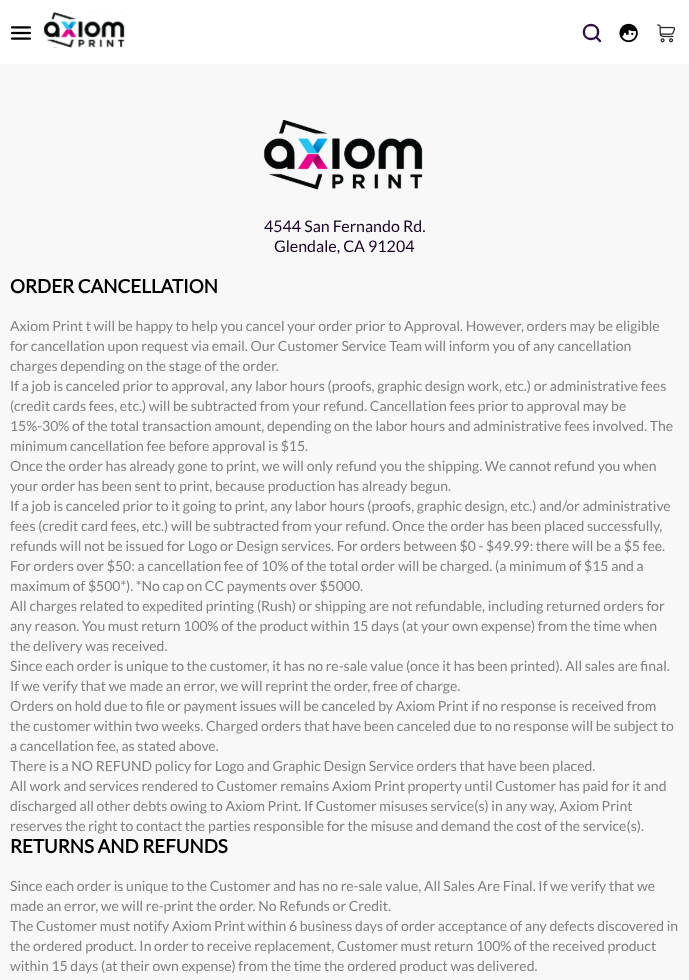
async function draw(canvas) {
  canvas.width = 689;
  canvas.height = 980;
  const ctx = canvas.getContext('2d');
  ctx.miterLimit = 4;
  ctx.fontKerning = 'normal';
  function label(s, x, y, font, color) {
    ctx.font = font;
    ctx.fillStyle = color;
    ctx.fillText(s, x, y);
  }
  function rect(x, y, w, h, color) {
    ctx.fillStyle = color;
    ctx.fillRect(x, y, w, h);
  }
  async function image(src, x, y, w, h) {
    const img = new Image();
    img.src = src;
    await img.decode();
    ctx.drawImage(img, x, y, w, h);
  }
  let path;

  rect(0, 0, 689, 980, '#f8f8f9');
  rect(0, 0, 689, 64, '#fff');
  await image('assets/img1.png', 10, 26, 22, 14);
  await image('assets/img2.png', 43, 12, 82, 36);
  path = new Path2D('M591 39C600.5 39 600.5 25 591 25C581.5 25 581.5 39 591 39ZM596 37L600 41');
  ctx.strokeStyle = '#300f45';
  ctx.lineWidth = 2.4;
  ctx.lineCap = 'round';
  ctx.lineJoin = 'round';
  ctx.stroke(path);
  await image('assets/img3.png', 619, 23, 19, 20);
  await image('assets/img4.png', 657, 24, 19, 19);
  await image('assets/img5.png', 263, 120, 160, 70);
  label('4544 San Fernando Rd.', 264, 232, '16px Lato', '#190326');
  label('Glendale, CA 91204', 274, 252, '16px Lato', '#190326');
  label('ORDER CANCELLATION', 10, 293, 'bold 18.75px Lato', '#000');
  label('Axiom Print t will be happy to help you cancel your order prior to Approval. However, orders may be eligible', 10, 331, '14px Lato', '#818181');
  label('for cancellation upon request via email. Our Customer Service Team will inform you of any cancellation', 10, 351, '14px Lato', '#818181');
  label('charges depending on the stage of the order.', 10, 371, '14px Lato', '#818181');
  label('If a job is canceled prior to approval, any labor hours (proofs, graphic design work, etc.) or administrative fees', 10, 391, '14px Lato', '#818181');
  label('(credit cards fees, etc.) will be subtracted from your refund. Cancellation fees prior to approval may be', 10, 411, '14px Lato', '#818181');
  label('15%-30% of the total transaction amount, depending on the labor hours and administrative fees involved. The', 10, 431, '14px Lato', '#818181');
  label('minimum cancellation fee before approval is $15.', 10, 451, '14px Lato', '#818181');
  label('Once the order has already gone to print, we will only refund you the shipping. We cannot refund you when', 10, 471, '14px Lato', '#818181');
  label('your order has been sent to print, because production has already begun.', 10, 491, '14px Lato', '#818181');
  label('If a job is canceled prior to it going to print, any labor hours (proofs, graphic design, etc.) and/or administrative', 10, 511, '14px Lato', '#818181');
  label('fees (credit card fees, etc.) will be subtracted from your refund. Once the order has been placed successfully,', 10, 531, '14px Lato', '#818181');
  label('refunds will not be issued for Logo or Design services. For orders between $0 - $49.99: there will be a $5 fee.', 10, 551, '14px Lato', '#818181');
  label('For orders over $50: a cancellation fee of 10% of the total order will be charged. (a minimum of $15 and a', 10, 571, '14px Lato', '#818181');
  label('maximum of $500*). *No cap on CC payments over $5000.', 10, 591, '14px Lato', '#818181');
  label('All charges related to expedited printing (Rush) or shipping are not refundable, including returned orders for', 10, 611, '14px Lato', '#818181');
  label('any reason. You must return 100% of the product within 15 days (at your own expense) from the time when', 10, 631, '14px Lato', '#818181');
  label('the delivery was received.', 10, 651, '14px Lato', '#818181');
  label('Since each order is unique to the customer, it has no re-sale value (once it has been printed). All sales are final.', 10, 671, '14px Lato', '#818181');
  label('If we verify that we made an error, we will reprint the order, free of charge.', 10, 691, '14px Lato', '#818181');
  label('Orders on hold due to file or payment issues will be canceled by Axiom Print if no response is received from', 10, 711, '14px Lato', '#818181');
  label('the customer within two weeks. Charged orders that have been canceled due to no response will be subject to', 10, 731, '14px Lato', '#818181');
  label('a cancellation fee, as stated above.', 10, 751, '14px Lato', '#818181');
  label('There is a NO REFUND policy for Logo and Graphic Design Service orders that have been placed.', 10, 771, '14px Lato', '#818181');
  label('All work and services rendered to Customer remains Axiom Print property until Customer has paid for it and', 10, 791, '14px Lato', '#818181');
  label('discharged all other debts owing to Axiom Print. If Customer misuses service(s) in any way, Axiom Print', 10, 811, '14px Lato', '#818181');
  label('reserves the right to contact the parties responsible for the misuse and demand the cost of the service(s).', 10, 831, '14px Lato', '#818181');
  label('RETURNS AND REFUNDS', 10, 853, 'bold 18.75px Lato', '#000');
  label('Since each order is unique to the Customer and has no re-sale value, All Sales Are Final. If we verify that we', 10, 891, '14px Lato', '#818181');
  label('made an error, we will re-print the order. No Refunds or Credit.', 10, 911, '14px Lato', '#818181');
  label('The Customer must notify Axiom Print within 6 business days of order acceptance of any defects discovered in', 10, 931, '14px Lato', '#818181');
  label('the ordered product. In order to receive replacement, Customer must return 100% of the received product', 10, 951, '14px Lato', '#818181');
  label('within 15 days (at their own expense) from the time the ordered product was delivered.', 10, 971, '14px Lato', '#818181');
}

draw(document.querySelector('canvas'));
